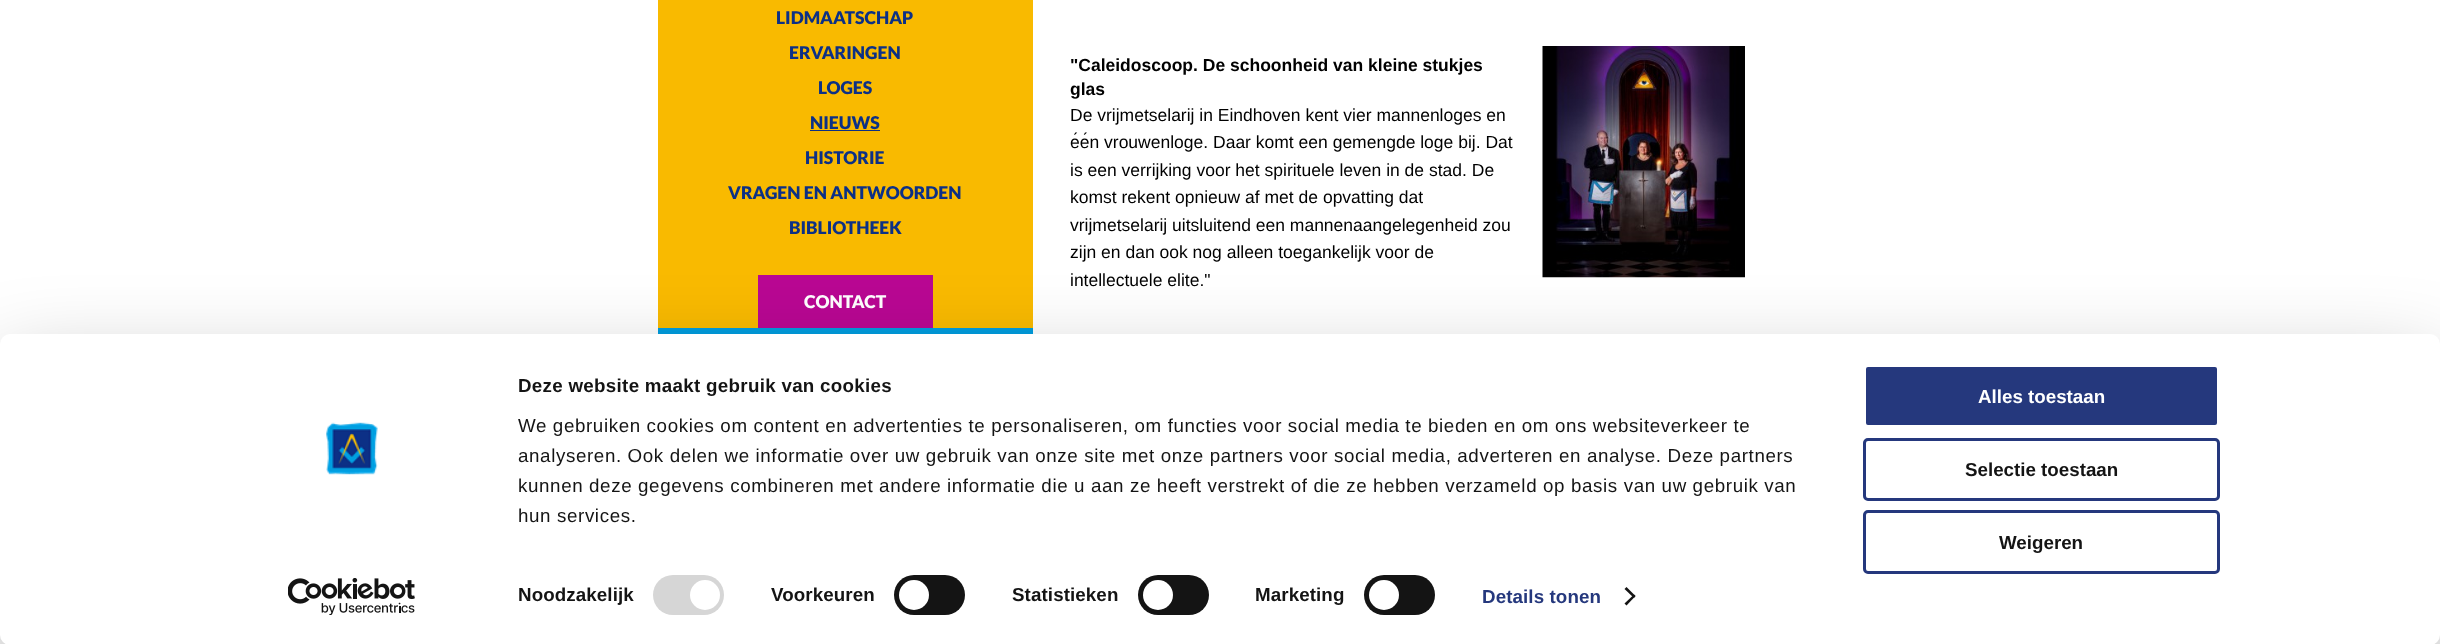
async function draw(canvas) {
  canvas.width = 2440;
  canvas.height = 644;
  const ctx = canvas.getContext('2d');
  ctx.miterLimit = 4;
  ctx.fontKerning = 'normal';
  function label(s, x, y, font, color) {
    ctx.font = font;
    ctx.fillStyle = color;
    ctx.fillText(s, x, y);
  }
  function rect(x, y, w, h, color) {
    ctx.fillStyle = color;
    ctx.fillRect(x, y, w, h);
  }
  function roundedRect(x, y, w, h, r, color) {
    ctx.fillStyle = color;
    ctx.beginPath();
    ctx.roundRect(x, y, w, h, r);
    ctx.fill();
  }
  async function image(src, x, y, w, h) {
    const img = new Image();
    img.src = src;
    await img.decode();
    ctx.drawImage(img, x, y, w, h);
  }
  let path;

  rect(0, 0, 2440, 644, '#fff');
  rect(658, 0, 375, 328, '#f9ba00');
  label('LIDMAATSCHAP', 776, 24, '900 17.5px Lato', '#0c3086');
  label('ERVARINGEN', 789, 59, '900 17.5px Lato', '#0c3086');
  label('LOGES', 818, 94, '900 17.5px Lato', '#0c3086');
  label('NIEUWS', 810, 129, '900 17.5px Lato', '#0c3086');
  rect(810, 130, 70, 1, '#0c3086');
  label('HISTORIE', 805, 164, '900 17.5px Lato', '#0c3086');
  label('VRAGEN EN ANTWOORDEN', 728, 199, '900 17.5px Lato', '#0c3086');
  label('BIBLIOTHEEK', 789, 234, '900 17.5px Lato', '#0c3086');
  rect(758, 275, 175, 53, '#b90793');
  label('CONTACT', 804, 308, '900 17.5px Lato', '#fff');
  rect(658, 328, 375, 6, '#009ddf');
  label('"Caleidoscoop. De schoonheid van kleine stukjes', 1070, 71, 'bold 17.5px Liberation Sans', '#000');
  label('glas', 1070, 95, 'bold 17.5px Liberation Sans', '#000');
  await image('assets/img1.png', 1542, 46, 203, 232);
  label('De vrijmetselarij in Eindhoven kent vier mannenloges en', 1070, 121, '17.5px Liberation Sans', '#000');
  label('één vrouwenloge. Daar komt een gemengde loge bij. Dat', 1070, 148, '17.5px Liberation Sans', '#000');
  label('is een verrijking voor het spirituele leven in de stad. De', 1070, 176, '17.5px Liberation Sans', '#000');
  label('komst rekent opnieuw af met de opvatting dat', 1070, 203, '17.5px Liberation Sans', '#000');
  label('vrijmetselarij uitsluitend een mannenaangelegenheid zou', 1070, 231, '17.5px Liberation Sans', '#000');
  label('zijn en dan ook nog alleen toegankelijk voor de', 1070, 258, '17.5px Liberation Sans', '#000');
  label('intellectuele elite."', 1070, 286, '17.5px Liberation Sans', '#000');
  ctx.fillStyle = '#0000004d';
  ctx.filter = 'blur(44px)';
  ctx.beginPath();
  ctx.roundRect(0, 371, 2440, 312, 10);
  ctx.fill();
  ctx.filter = 'none';
  roundedRect(0, 334, 2440, 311, 10, '#fff');
  await image('assets/img2.png', 326, 422, 52, 53);
  await image('assets/img3.png', 288, 578, 127, 37);
  ctx.letterSpacing = '0.3px';
  label('Deze website maakt gebruik van cookies', 518, 392, 'bold 18.75px Liberation Sans', '#141414');
  ctx.letterSpacing = '0.62px';
  label('We gebruiken cookies om content en advertenties te personaliseren, om functies voor social media te bieden en om ons websiteverkeer te', 518, 432, '18.75px Liberation Sans', '#141414');
  label('analyseren. Ook delen we informatie over uw gebruik van onze site met onze partners voor social media, adverteren en analyse. Deze partners', 518, 462, '18.75px Liberation Sans', '#141414');
  label('kunnen deze gegevens combineren met andere informatie die u aan ze heeft verstrekt of die ze hebben verzameld op basis van uw gebruik van', 518, 492, '18.75px Liberation Sans', '#141414');
  label('hun services.', 518, 522, '18.75px Liberation Sans', '#141414');
  ctx.letterSpacing = '0.1px';
  label('Noodzakelijk', 518, 601, 'bold 18.75px Liberation Sans', '#141414');
  roundedRect(653, 575, 71, 40, 20, '#d6d6d6');
  ctx.fillStyle = '#fff';
  ctx.beginPath();
  ctx.arc(705, 595, 15, 0, 2 * Math.PI);
  ctx.fill();
  label('Voorkeuren', 771, 601, 'bold 18.75px Liberation Sans', '#141414');
  roundedRect(894, 575, 71, 40, 20, '#141414');
  ctx.fillStyle = '#fff';
  ctx.beginPath();
  ctx.arc(914, 595, 15, 0, 2 * Math.PI);
  ctx.fill();
  label('Statistieken', 1012, 601, 'bold 18.75px Liberation Sans', '#141414');
  roundedRect(1138, 575, 71, 40, 20, '#141414');
  ctx.fillStyle = '#fff';
  ctx.beginPath();
  ctx.arc(1158, 595, 15, 0, 2 * Math.PI);
  ctx.fill();
  label('Marketing', 1255, 601, 'bold 18.75px Liberation Sans', '#141414');
  roundedRect(1364, 575, 71, 40, 20, '#141414');
  ctx.fillStyle = '#fff';
  ctx.beginPath();
  ctx.arc(1384, 595, 15, 0, 2 * Math.PI);
  ctx.fill();
  label('Details tonen', 1482, 603, 'bold 18.75px Liberation Sans', '#25387d');
  ctx.fillStyle = '#141414';
  path = new Path2D('M1626.5 587L1635.5 596L1634 598L1624.5 589Z');
  ctx.fill(path);
  path = new Path2D('M1634 594.5L1635.5 596L1626.5 605.5L1624.5 603.5Z');
  ctx.fill(path);
  ctx.fillStyle = '#25387d';
  ctx.beginPath();
  ctx.roundRect(1864.5, 365.5, 354, 61, 3.5);
  ctx.fill();
  ctx.strokeStyle = '#fff';
  ctx.lineWidth = 3;
  ctx.stroke();
  ctx.letterSpacing = '0px';
  label('Alles toestaan', 1978, 403, 'bold 18.75px Liberation Sans', '#fff');
  ctx.beginPath();
  ctx.roundRect(1864.5, 439.5, 354, 60, 3.5);
  ctx.strokeStyle = '#25387d';
  ctx.stroke();
  label('Selectie toestaan', 1965, 476, 'bold 18.75px Liberation Sans', '#141414');
  ctx.beginPath();
  ctx.roundRect(1864.5, 511.5, 354, 61, 3.5);
  ctx.stroke();
  label('Weigeren', 1999, 549, 'bold 18.75px Liberation Sans', '#141414');
}

draw(document.querySelector('canvas'));
